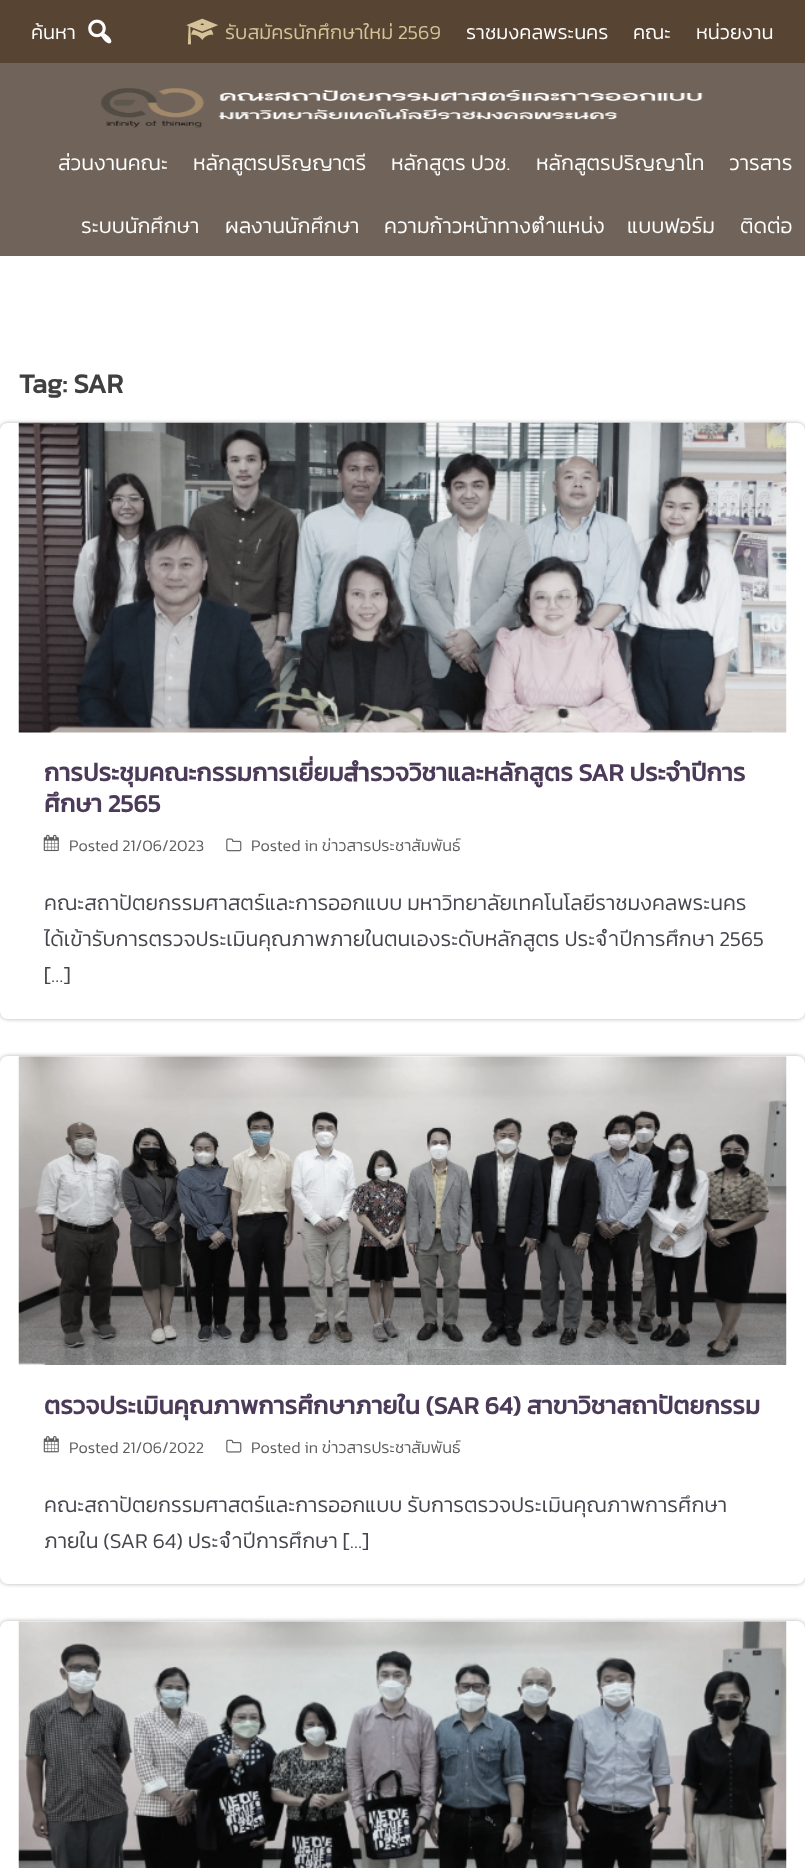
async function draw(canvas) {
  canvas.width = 805;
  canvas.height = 1868;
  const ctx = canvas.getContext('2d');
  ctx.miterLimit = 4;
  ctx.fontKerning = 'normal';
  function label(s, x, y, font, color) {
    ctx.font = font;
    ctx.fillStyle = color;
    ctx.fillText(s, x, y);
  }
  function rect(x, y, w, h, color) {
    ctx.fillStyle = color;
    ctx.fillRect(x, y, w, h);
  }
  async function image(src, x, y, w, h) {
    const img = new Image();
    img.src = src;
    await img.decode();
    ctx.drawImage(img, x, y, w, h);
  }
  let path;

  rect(0, 0, 805, 1868, '#fff');
  rect(0, 63, 805, 193, '#706359');
  rect(0, 0, 805, 63, '#574433');
  label('ค้นหา', 31, 39, '300 20px Kanit', '#fff');
  await image('assets/img1.png', 88, 19, 24, 25);
  await image('assets/img2.png', 186, 18, 32, 27);
  label('รับสมัครนักศึกษาใหม่ 2569', 225, 39, '300 20px Kanit', '#d5c298');
  label('ราชมงคลพระนคร', 466, 39, '300 20px Kanit', '#fff');
  label('คณะ', 633, 39, '300 20px Kanit', '#fff');
  label('หน่วยงาน', 696, 39, '300 20px Kanit', '#fff');
  await image('assets/img3.png', 101, 88, 602, 40);
  label('ส่วนงานคณะ', 58, 170, '300 21.25px Kanit', '#fff');
  label('หลักสูตรปริญญาตรี', 193, 170, '300 21.25px Kanit', '#fff');
  label('หลักสูตร ปวช.', 391, 170, '300 21.25px Kanit', '#fff');
  label('หลักสูตรปริญญาโท', 536, 170, '300 21.25px Kanit', '#fff');
  label('วารสาร', 729, 170, '300 21.25px Kanit', '#fff');
  label('ระบบนักศึกษา', 81, 233, '300 21.25px Kanit', '#fff');
  label('ผลงานนักศึกษา', 225, 233, '300 21.25px Kanit', '#fff');
  label('ความก้าวหน้าทางตำแหน่ง', 384, 233, '300 21.25px Kanit', '#fff');
  label('แบบฟอร์ม', 627, 233, '300 21.25px Kanit', '#fff');
  label('ติดต่อ', 740, 233, '300 21.25px Kanit', '#fff');
  label('Tag: SAR', 19, 393, 'bold 27.5px Kanit', '#414040');
  ctx.save();
  path = new Path2D('M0 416H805V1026H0ZM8 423H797C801.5 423 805 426.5 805 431V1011C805 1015.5 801.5 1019 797 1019H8C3.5 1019 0 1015.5 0 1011V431C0 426.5 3.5 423 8 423Z');
  ctx.clip(path, 'evenodd');
  ctx.fillStyle = '#0000004d';
  ctx.filter = 'blur(2px)';
  ctx.beginPath();
  ctx.roundRect(0, 423, 805, 596, 8);
  ctx.fill();
  ctx.filter = 'none';
  ctx.restore();
  await image('assets/img4.png', 18, 422, 769, 311);
  label('การประชุมคณะกรรมการเยี่ยมสำรวจวิชาและหลักสูตร SAR ประจำปีการ', 44, 781, 'bold 25px Kanit', '#4b3a58');
  label('ศึกษา 2565', 44, 812, 'bold 25px Kanit', '#4b3a58');
  await image('assets/img5.png', 43, 834, 16, 18);
  label('Posted 21/06/2023', 69, 851, '300 16.25px Kanit', '#5e5e5e');
  await image('assets/img6.png', 226, 838, 16, 14);
  label('Posted in ข่าวสารประชาสัมพันธ์', 251, 851, '300 16.25px Kanit', '#5e5e5e');
  label('คณะสถาปัตยกรรมศาสตร์และการออกแบบ มหาวิทยาลัยเทคโนโลยีราชมงคลพระนคร', 44, 910, '300 21.25px Kanit', '#46444c');
  label('ได้เข้ารับการตรวจประเมินคุณภาพภายในตนเองระดับหลักสูตร ประจำปีการศึกษา 2565', 44, 946, '300 21.25px Kanit', '#46444c');
  label('[…]', 44, 982, '300 21.25px Kanit', '#46444c');
  ctx.save();
  path = new Path2D('M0 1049H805V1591H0ZM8 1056H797C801.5 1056 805 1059.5 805 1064V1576C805 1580.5 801.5 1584 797 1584H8C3.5 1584 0 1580.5 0 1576V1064C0 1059.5 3.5 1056 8 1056Z');
  ctx.clip(path, 'evenodd');
  ctx.fillStyle = '#0000004d';
  ctx.filter = 'blur(2px)';
  ctx.beginPath();
  ctx.roundRect(0, 1056, 805, 528, 8);
  ctx.fill();
  ctx.filter = 'none';
  ctx.restore();
  await image('assets/img7.png', 18, 1056, 769, 309);
  label('ตรวจประเมินคุณภาพการศึกษาภายใน (SAR 64) สาขาวิชาสถาปัตยกรรม', 44, 1414, 'bold 25px Kanit', '#4b3a58');
  await image('assets/img8.png', 43, 1436, 16, 17);
  label('Posted 21/06/2022', 69, 1453, '300 16.25px Kanit', '#5e5e5e');
  await image('assets/img9.png', 226, 1439, 16, 14);
  label('Posted in ข่าวสารประชาสัมพันธ์', 251, 1453, '300 16.25px Kanit', '#5e5e5e');
  label('คณะสถาปัตยกรรมศาสตร์และการออกแบบ รับการตรวจประเมินคุณภาพการศึกษา', 44, 1512, '300 21.25px Kanit', '#46444c');
  label('ภายใน (SAR 64) ประจำปีการศึกษา […]', 44, 1548, '300 21.25px Kanit', '#46444c');
  ctx.save();
  path = new Path2D('M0 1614H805V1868H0ZM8 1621H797C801.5 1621 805 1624.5 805 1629V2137C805 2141.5 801.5 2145 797 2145H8C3.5 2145 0 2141.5 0 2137V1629C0 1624.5 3.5 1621 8 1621Z');
  ctx.clip(path, 'evenodd');
  ctx.fillStyle = '#0000004d';
  ctx.filter = 'blur(2px)';
  ctx.beginPath();
  ctx.roundRect(0, 1621, 805, 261, 8);
  ctx.fill();
  ctx.filter = 'none';
  ctx.restore();
  await image('assets/img10.png', 18, 1621, 769, 247);
}

draw(document.querySelector('canvas'));
